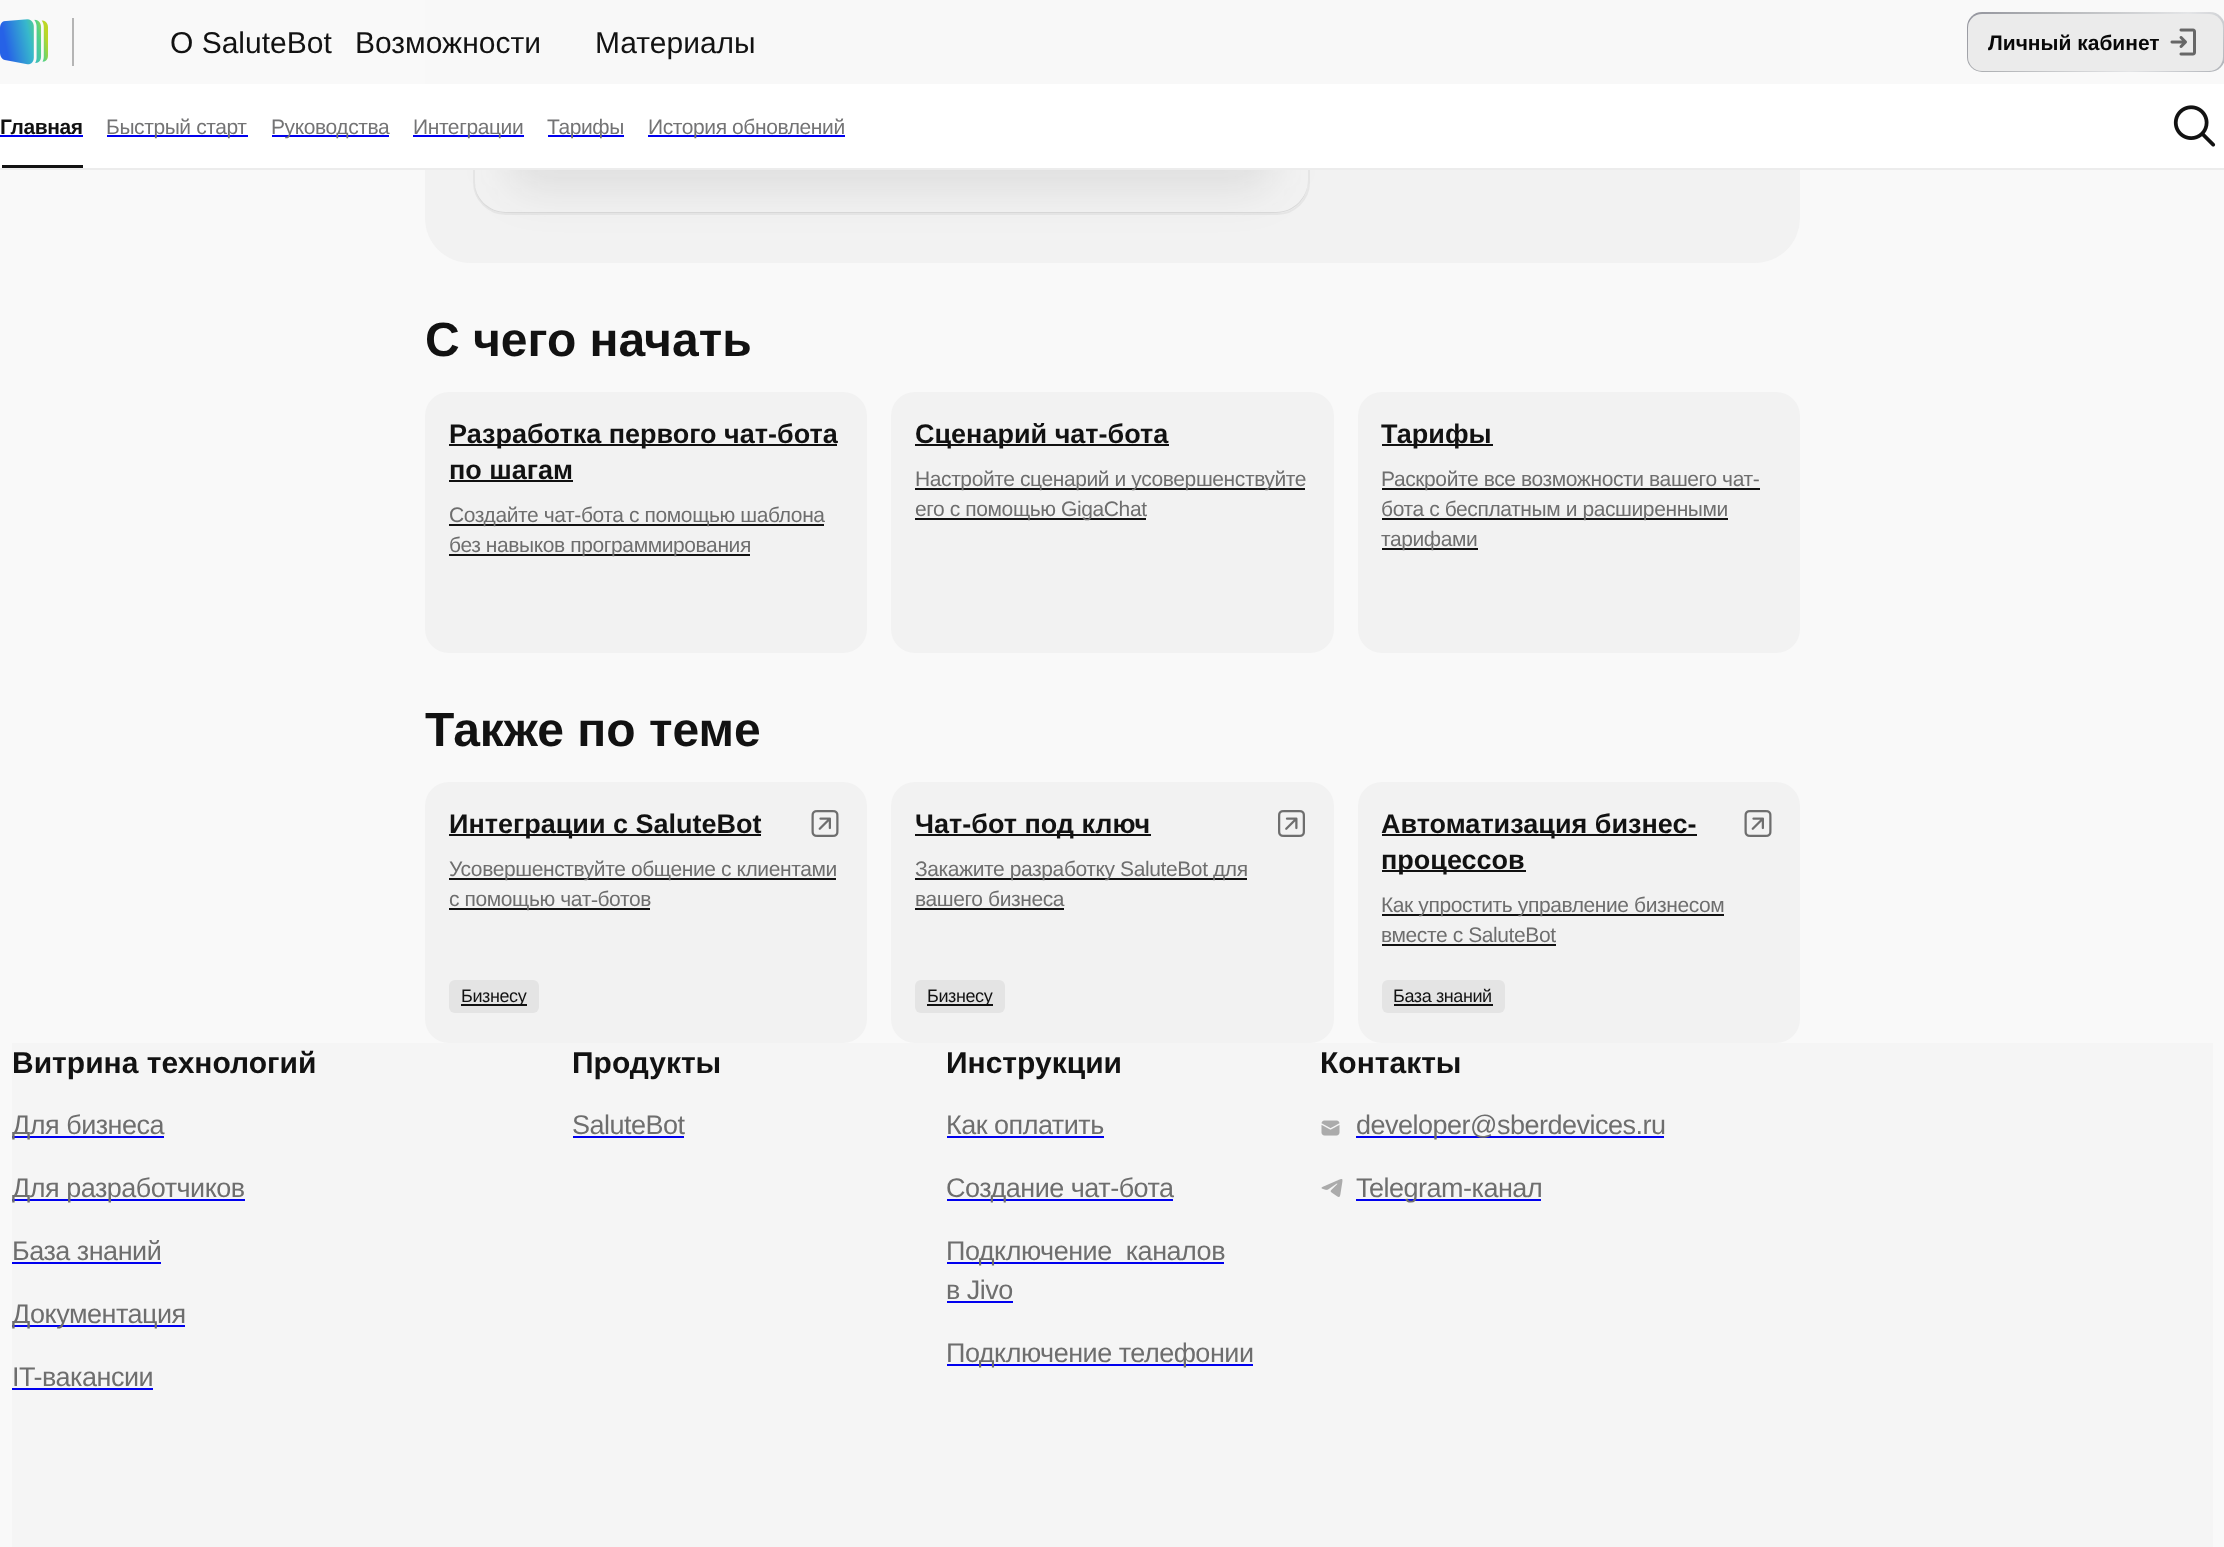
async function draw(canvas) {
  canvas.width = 2224;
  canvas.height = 1547;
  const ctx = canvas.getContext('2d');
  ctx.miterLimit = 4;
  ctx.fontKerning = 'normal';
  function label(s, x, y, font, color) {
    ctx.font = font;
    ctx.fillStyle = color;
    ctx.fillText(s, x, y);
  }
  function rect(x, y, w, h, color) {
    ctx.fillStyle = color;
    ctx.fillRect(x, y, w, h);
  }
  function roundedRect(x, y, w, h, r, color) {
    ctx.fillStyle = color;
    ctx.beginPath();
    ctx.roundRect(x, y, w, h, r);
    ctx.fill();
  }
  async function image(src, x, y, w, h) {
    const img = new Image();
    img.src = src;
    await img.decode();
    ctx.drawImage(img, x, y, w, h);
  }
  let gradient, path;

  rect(0, 0, 2224, 1547, '#f9f9f9');
  roundedRect(425, -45, 1375, 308, 45, '#f2f2f2');
  ctx.fillStyle = '#dadada';
  path = new Path2D('M474 180V181C474 199 488 213 506 213H1276C1294 213 1308 199 1308 181V180C1308 197 1294 212 1276 212H506C488 212 474 197 474 180Z');
  ctx.fill(path);
  ctx.beginPath();
  ctx.roundRect(474, -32, 835, 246, 32);
  ctx.strokeStyle = '#dedede99';
  ctx.lineWidth = 2;
  ctx.stroke();
  ctx.fillStyle = '#2e2f341a';
  ctx.filter = 'blur(23px)';
  ctx.beginPath();
  ctx.roundRect(510, 117, 762, 72, 18);
  ctx.fill();
  ctx.filter = 'none';
  rect(0, 168, 2224, 2, '#ececec');
  rect(425, 0, 1375, 84, '#f8f8f8');
  await image('assets/img1.png', 0, 19, 48, 46);
  rect(72, 18, 2, 48, '#b5b5b5');
  label('O SaluteBot', 170, 53, '30px Liberation Sans', '#121212');
  label('Возможности', 355, 53, '30px Liberation Sans', '#121212');
  label('Материалы', 595, 53, '30px Liberation Sans', '#121212');
  gradient = ctx.createLinearGradient(1919, -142, 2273, 211);
  gradient.addColorStop(0.2, '#7e7e8b');
  gradient.addColorStop(0.4, '#b0b2b5');
  gradient.addColorStop(0.6, '#e4e5e7');
  gradient.addColorStop(0.8, '#9599a0');
  ctx.fillStyle = gradient;
  ctx.beginPath();
  ctx.roundRect(1967, 12, 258, 60, 15);
  ctx.fill();
  roundedRect(1968, 14, 255, 57, 14, '#ebebeb');
  label('Личный кабинет', 1988, 50, 'bold 21px Liberation Sans', '#080808');
  await image('assets/img2.png', 2170, 28, 26, 28);
  rect(0, 84, 2224, 84, '#fff');
  ctx.letterSpacing = '-0.4px';
  label('Главная', 0, 134, 'bold 21px Liberation Sans', '#121212');
  rect(0, 135, 83, 2, '#00e');
  rect(2, 165, 81, 3, '#121212');
  rect(107, 135, 141, 2, '#00e');
  label('Быстрый старт', 106, 134, '21px Liberation Sans', '#747475');
  rect(272, 135, 117, 2, '#00e');
  label('Руководства', 271, 134, '21px Liberation Sans', '#747475');
  rect(413, 135, 111, 2, '#00e');
  label('Интеграции', 413, 134, '21px Liberation Sans', '#747475');
  rect(548, 135, 76, 2, '#00e');
  label('Тарифы', 547, 134, '21px Liberation Sans', '#747475');
  rect(648, 135, 197, 2, '#00e');
  label('История обновлений', 648, 134, '21px Liberation Sans', '#747475');
  await image('assets/img3.png', 2173, 105, 43, 42);
  ctx.letterSpacing = '0px';
  label('С чего начать', 425, 356, 'bold 48px Liberation Sans', '#121212');
  roundedRect(425, 392, 442, 261, 24, '#f2f2f2');
  rect(449, 444, 388, 2, '#111');
  label('Разработка первого чат-бота', 449, 443, 'bold 27px Liberation Sans', '#121212');
  label('по шагам', 449, 479, 'bold 27px Liberation Sans', '#121212');
  rect(449, 480, 124, 2, '#111');
  rect(449, 524, 375, 2, '#111');
  ctx.letterSpacing = '-0.4px';
  label('Создайте чат-бота с помощью шаблона', 449, 522, '21px Liberation Sans', '#6e6e6e');
  rect(449, 554, 301, 2, '#111');
  label('без навыков программирования', 449, 552, '21px Liberation Sans', '#6e6e6e');
  roundedRect(891, 392, 443, 261, 24, '#f2f2f2');
  rect(915, 444, 254, 2, '#111');
  ctx.letterSpacing = '0px';
  label('Сценарий чат-бота', 915, 443, 'bold 27px Liberation Sans', '#121212');
  rect(915, 488, 390, 2, '#111');
  ctx.letterSpacing = '-0.4px';
  label('Настройте сценарий и усовершенствуйте', 915, 486, '21px Liberation Sans', '#6e6e6e');
  rect(915, 518, 231, 2, '#111');
  label('его с помощью GigaChat', 915, 516, '21px Liberation Sans', '#6e6e6e');
  roundedRect(1358, 392, 442, 261, 24, '#f2f2f2');
  rect(1382, 444, 111, 2, '#111');
  ctx.letterSpacing = '0px';
  label('Тарифы', 1381, 443, 'bold 27px Liberation Sans', '#121212');
  rect(1382, 488, 378, 2, '#111');
  ctx.letterSpacing = '-0.4px';
  label('Раскройте все возможности вашего чат-', 1381, 486, '21px Liberation Sans', '#6e6e6e');
  rect(1382, 518, 346, 2, '#111');
  label('бота с бесплатным и расширенными', 1381, 516, '21px Liberation Sans', '#6e6e6e');
  rect(1382, 548, 96, 2, '#111');
  label('тарифами', 1381, 546, '21px Liberation Sans', '#6e6e6e');
  ctx.letterSpacing = '0px';
  label('Также по теме', 425, 746, 'bold 48px Liberation Sans', '#121212');
  roundedRect(425, 782, 442, 261, 24, '#f2f2f2');
  rect(449, 834, 312, 2, '#111');
  label('Интеграции с SaluteBot', 449, 833, 'bold 27px Liberation Sans', '#121212');
  await image('assets/img4.png', 811, 810, 28, 27);
  rect(449, 878, 387, 2, '#111');
  ctx.letterSpacing = '-0.4px';
  label('Усовершенствуйте общение с клиентами', 449, 876, '21px Liberation Sans', '#6e6e6e');
  rect(449, 908, 201, 2, '#111');
  label('с помощью чат‑ботов', 449, 906, '21px Liberation Sans', '#6e6e6e');
  roundedRect(449, 980, 90, 33, 6, '#e4e4e4');
  rect(461, 1004, 66, 2, '#111');
  label('Бизнесу', 461, 1002, '18px Liberation Sans', '#121212');
  roundedRect(891, 782, 443, 261, 24, '#f2f2f2');
  rect(915, 834, 236, 2, '#111');
  ctx.letterSpacing = '0px';
  label('Чат-бот под ключ', 915, 833, 'bold 27px Liberation Sans', '#121212');
  await image('assets/img5.png', 1278, 810, 27, 27);
  rect(915, 878, 332, 2, '#111');
  ctx.letterSpacing = '-0.4px';
  label('Закажите разработку SaluteBot для', 915, 876, '21px Liberation Sans', '#6e6e6e');
  label('вашего бизнеса', 915, 906, '21px Liberation Sans', '#6e6e6e');
  rect(915, 908, 149, 2, '#111');
  roundedRect(915, 980, 90, 33, 6, '#e4e4e4');
  rect(927, 1004, 66, 2, '#111');
  label('Бизнесу', 927, 1002, '18px Liberation Sans', '#121212');
  roundedRect(1358, 782, 442, 261, 24, '#f2f2f2');
  rect(1382, 834, 315, 2, '#111');
  ctx.letterSpacing = '0px';
  label('Автоматизация бизнес-', 1381, 833, 'bold 27px Liberation Sans', '#121212');
  rect(1382, 870, 144, 2, '#111');
  label('процессов', 1381, 869, 'bold 27px Liberation Sans', '#121212');
  await image('assets/img4.png', 1744, 810, 28, 27);
  rect(1382, 914, 342, 2, '#111');
  ctx.letterSpacing = '-0.4px';
  label('Как упростить управление бизнесом', 1381, 912, '21px Liberation Sans', '#6e6e6e');
  label('вместе с SaluteBot', 1381, 942, '21px Liberation Sans', '#6e6e6e');
  rect(1382, 944, 174, 2, '#111');
  roundedRect(1382, 980, 123, 33, 6, '#e4e4e4');
  label('База знаний', 1393, 1002, '18px Liberation Sans', '#121212');
  rect(1394, 1004, 99, 2, '#111');
  rect(12, 1043, 2201, 504, '#f5f5f5');
  ctx.letterSpacing = '0px';
  label('Витрина технологий', 12, 1073, 'bold 30px Liberation Sans', '#121212');
  rect(12, 1136, 152, 2, '#00e');
  ctx.letterSpacing = '-0.5px';
  label('Для бизнеса', 12, 1134, '27px Liberation Sans', '#6e6e6e');
  rect(12, 1199, 233, 2, '#00e');
  label('Для разработчиков', 12, 1197, '27px Liberation Sans', '#6e6e6e');
  label('База знаний', 12, 1260, '27px Liberation Sans', '#6e6e6e');
  rect(12, 1262, 149, 2, '#00e');
  rect(12, 1325, 173, 2, '#00e');
  label('Документация', 12, 1323, '27px Liberation Sans', '#6e6e6e');
  label('IT-вакансии', 12, 1386, '27px Liberation Sans', '#6e6e6e');
  rect(12, 1388, 141, 2, '#00e');
  ctx.letterSpacing = '0px';
  label('Продукты', 572, 1073, 'bold 30px Liberation Sans', '#121212');
  ctx.letterSpacing = '-0.5px';
  label('SaluteBot', 572, 1134, '27px Liberation Sans', '#6e6e6e');
  rect(573, 1136, 111, 2, '#00e');
  ctx.letterSpacing = '0px';
  label('Инструкции', 946, 1073, 'bold 30px Liberation Sans', '#121212');
  ctx.letterSpacing = '-0.5px';
  label('Как оплатить', 946, 1134, '27px Liberation Sans', '#6e6e6e');
  rect(947, 1136, 157, 2, '#00e');
  rect(947, 1199, 226, 2, '#00e');
  label('Создание чат-бота', 946, 1197, '27px Liberation Sans', '#6e6e6e');
  rect(947, 1262, 277, 2, '#00e');
  ctx.wordSpacing = '7px';
  label('Подключение каналов', 946, 1260, '27px Liberation Sans', '#6e6e6e');
  ctx.wordSpacing = '0px';
  label('в Jivo', 946, 1299, '27px Liberation Sans', '#6e6e6e');
  rect(947, 1301, 66, 2, '#00e');
  rect(947, 1364, 306, 2, '#00e');
  label('Подключение телефонии', 946, 1362, '27px Liberation Sans', '#6e6e6e');
  ctx.letterSpacing = '0px';
  label('Контакты', 1320, 1073, 'bold 30px Liberation Sans', '#121212');
  await image('assets/img6.png', 1321, 1120, 19, 16);
  rect(1356, 1136, 308, 2, '#00e');
  ctx.letterSpacing = '-0.5px';
  label('developer@sberdevices.ru', 1356, 1134, '27px Liberation Sans', '#6e6e6e');
  await image('assets/img7.png', 1321, 1179, 22, 18);
  rect(1356, 1199, 185, 2, '#00e');
  label('Telegram-канал', 1356, 1197, '27px Liberation Sans', '#6e6e6e');
}

draw(document.querySelector('canvas'));
